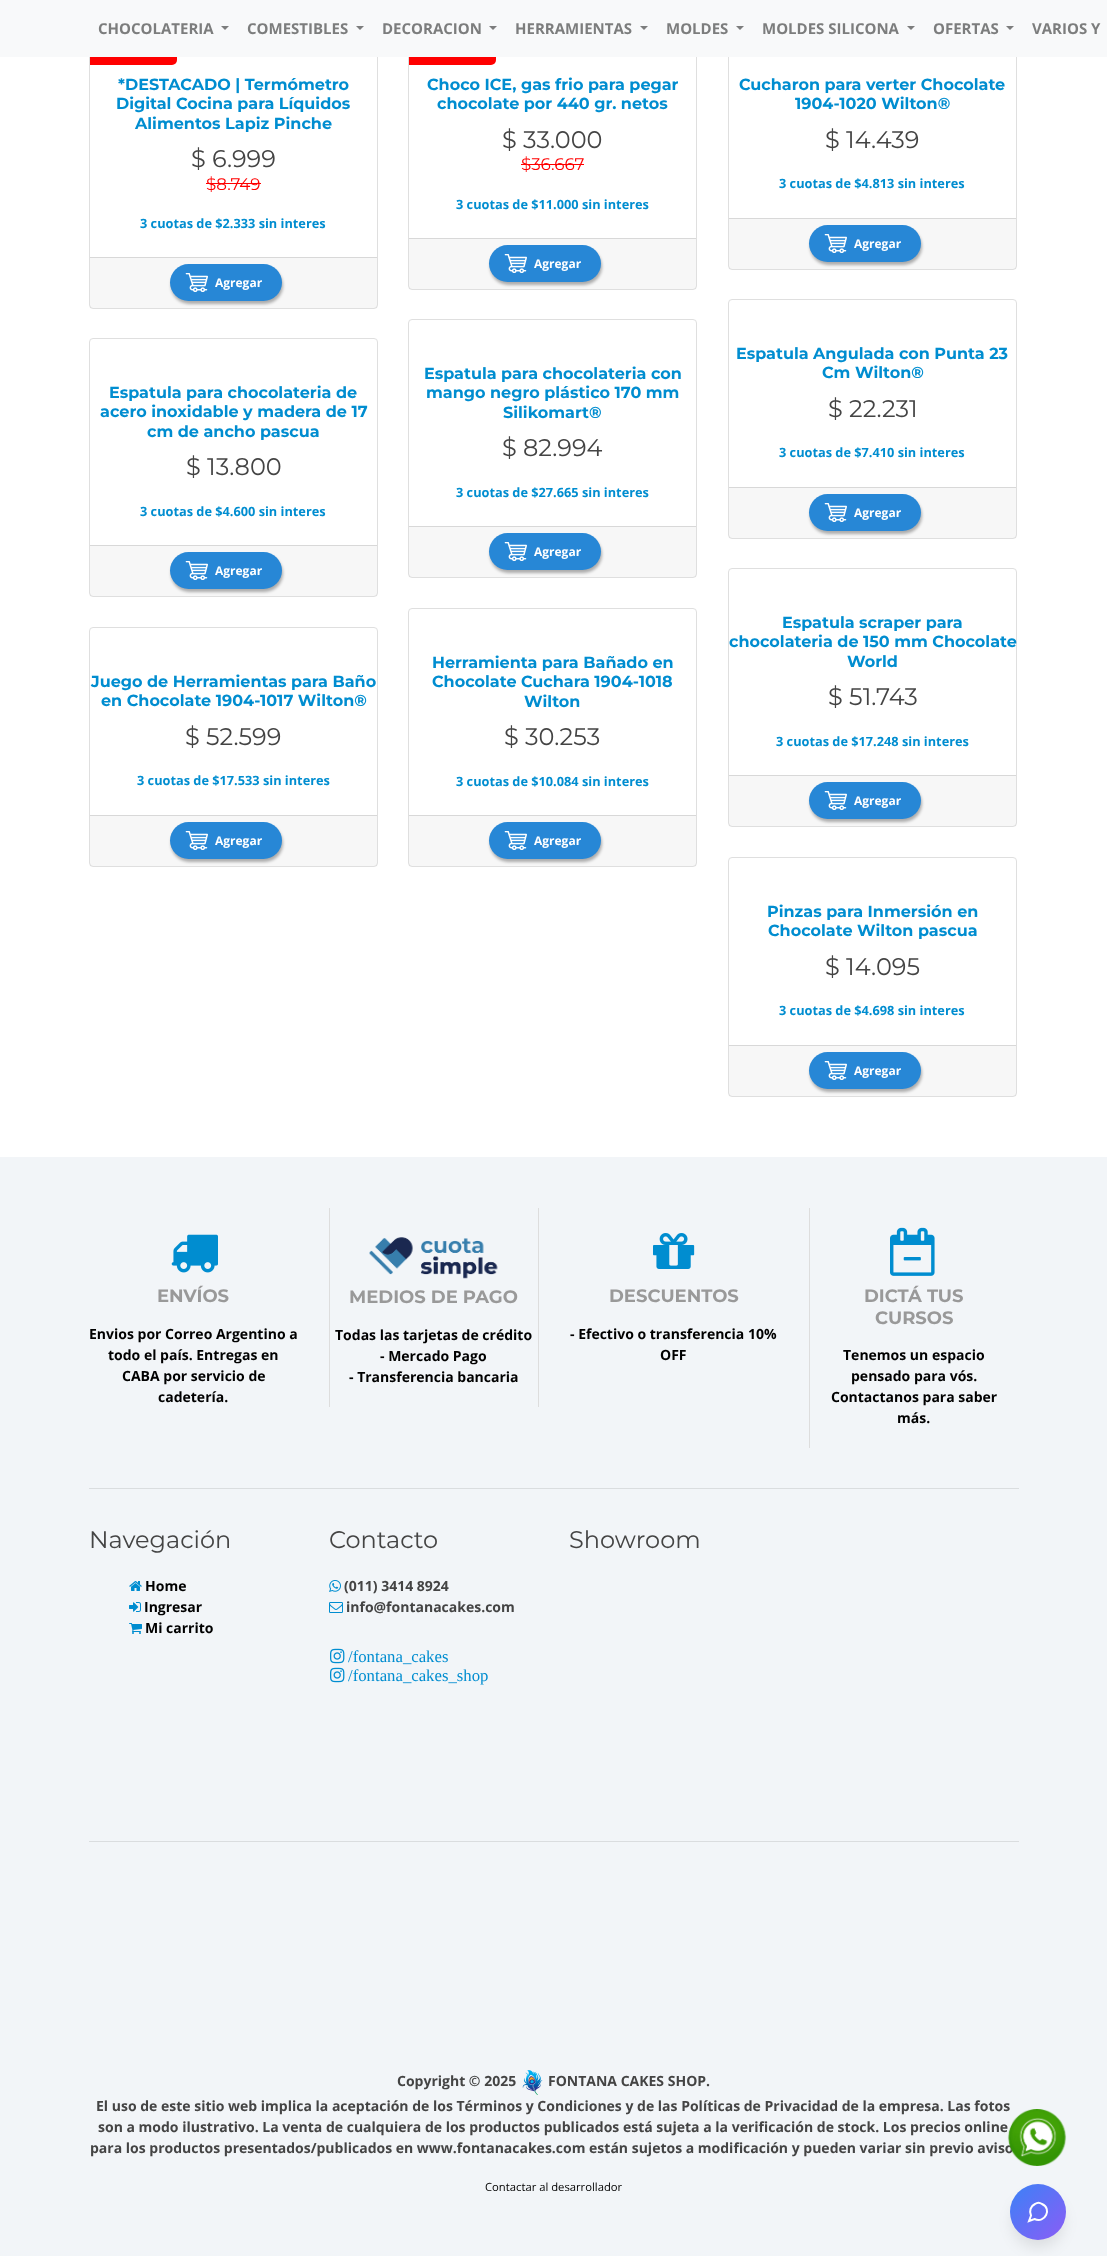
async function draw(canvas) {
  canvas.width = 1107;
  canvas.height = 2256;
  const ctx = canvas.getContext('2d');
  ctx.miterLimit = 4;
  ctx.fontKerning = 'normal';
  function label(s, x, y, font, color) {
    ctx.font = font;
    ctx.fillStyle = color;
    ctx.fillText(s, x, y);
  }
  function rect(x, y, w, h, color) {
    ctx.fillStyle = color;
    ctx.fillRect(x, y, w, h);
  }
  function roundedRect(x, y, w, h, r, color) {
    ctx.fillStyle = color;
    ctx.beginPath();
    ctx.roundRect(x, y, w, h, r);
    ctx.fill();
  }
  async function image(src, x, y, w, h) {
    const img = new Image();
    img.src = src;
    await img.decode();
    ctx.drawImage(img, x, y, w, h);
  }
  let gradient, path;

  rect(0, 0, 1107, 2256, '#fff');
  ctx.beginPath();
  ctx.roundRect(89.5, 30.5, 288, 278, 3.5);
  ctx.strokeStyle = '#dfdfdf';
  ctx.stroke();
  ctx.fillStyle = '#f00';
  ctx.beginPath();
  ctx.roundRect(90, 31, 87, 34, [0, 0, 5, 0]);
  ctx.fill();
  ctx.beginPath();
  ctx.roundRect(408.5, 30.5, 288, 259, 3.5);
  ctx.stroke();
  ctx.beginPath();
  ctx.roundRect(409, 31, 87, 34, [0, 0, 5, 0]);
  ctx.fill();
  ctx.beginPath();
  ctx.roundRect(728.5, 30.5, 288, 239, 3.5);
  ctx.stroke();
  rect(0, 0, 1107, 57, '#f8f9fa');
  label('CHOCOLATERIA', 98, 34, 'bold 15px Open Sans', '#7c7d7d');
  path = new Path2D('M221 26H229L225 30Z');
  ctx.fill(path);
  label('COMESTIBLES', 247, 34, 'bold 15px Open Sans', '#7c7d7d');
  path = new Path2D('M356 26H364L360 30Z');
  ctx.fill(path);
  label('DECORACION', 382, 34, 'bold 15px Open Sans', '#7c7d7d');
  path = new Path2D('M489 26H497L493 30Z');
  ctx.fill(path);
  label('HERRAMIENTAS', 515, 34, 'bold 15px Open Sans', '#7c7d7d');
  path = new Path2D('M640 26H648L644 30Z');
  ctx.fill(path);
  label('MOLDES', 666, 34, 'bold 15px Open Sans', '#7c7d7d');
  path = new Path2D('M736 26H744L740 30Z');
  ctx.fill(path);
  label('MOLDES SILICONA', 762, 34, 'bold 15px Open Sans', '#7c7d7d');
  path = new Path2D('M907 26H915L911 30Z');
  ctx.fill(path);
  label('OFERTAS', 933, 34, 'bold 15px Open Sans', '#7c7d7d');
  path = new Path2D('M1006 26H1014L1010 30Z');
  ctx.fill(path);
  label('VARIOS Y', 1032, 34, 'bold 15px Open Sans', '#7c7d7d');
  label('*DESTACADO | Termómetro', 118, 90, 'bold 16px Montserrat', '#008dd0');
  label('Digital Cocina para Líquidos', 116, 109, 'bold 16px Montserrat', '#008dd0');
  label('Alimentos Lapiz Pinche', 135, 129, 'bold 16px Montserrat', '#008dd0');
  label('$ 6.999', 191, 167, '24px Montserrat', '#444');
  label('$8.749', 206, 190, '16.75px Montserrat', '#f00');
  rect(206, 183, 55, 1, '#f00');
  label('3 cuotas de $2.333 sin interes', 140, 228, 'bold 12.75px Open Sans', '#008dd0');
  rect(90, 258, 287, 50, '#00000008');
  rect(90, 257, 287, 1, '#d8d8d8');
  ctx.fillStyle = '#0000004d';
  ctx.filter = 'blur(1.5px)';
  ctx.beginPath();
  ctx.roundRect(171, 267, 112, 37, 18.5);
  ctx.fill();
  ctx.filter = 'none';
  roundedRect(170, 264, 112, 37, 18.5, '#2787d6');
  await image('assets/img1.png', 185, 273, 23, 19);
  label('Agregar', 215, 287, 'bold 12px Open Sans', '#fff');
  label('Choco ICE, gas frio para pegar', 427, 90, 'bold 16px Montserrat', '#008dd0');
  label('chocolate por 440 gr. netos', 437, 109, 'bold 16px Montserrat', '#008dd0');
  label('$ 33.000', 502, 148, '24px Montserrat', '#444');
  label('$36.667', 521, 170, '16.75px Montserrat', '#f00');
  rect(521, 164, 63, 1, '#f00');
  label('3 cuotas de $11.000 sin interes', 456, 209, 'bold 12.75px Open Sans', '#008dd0');
  rect(409, 239, 287, 50, '#00000008');
  rect(409, 238, 287, 1, '#d8d8d8');
  ctx.fillStyle = '#0000004d';
  ctx.filter = 'blur(1.5px)';
  ctx.beginPath();
  ctx.roundRect(490, 248, 112, 37, 18.5);
  ctx.fill();
  ctx.filter = 'none';
  roundedRect(489, 245, 112, 37, 18.5, '#2787d6');
  await image('assets/img1.png', 504, 254, 23, 19);
  label('Agregar', 534, 268, 'bold 12px Open Sans', '#fff');
  label('Cucharon para verter Chocolate', 739, 90, 'bold 16px Montserrat', '#008dd0');
  label('1904-1020 Wilton®', 795, 109, 'bold 16px Montserrat', '#008dd0');
  label('$ 14.439', 825, 148, '24px Montserrat', '#444');
  label('3 cuotas de $4.813 sin interes', 779, 188, 'bold 12.75px Open Sans', '#008dd0');
  rect(729, 219, 287, 50, '#00000008');
  rect(729, 218, 287, 1, '#d8d8d8');
  ctx.fillStyle = '#0000004d';
  ctx.filter = 'blur(1.5px)';
  ctx.beginPath();
  ctx.roundRect(810, 228, 112, 37, 18.5);
  ctx.fill();
  ctx.filter = 'none';
  roundedRect(809, 225, 112, 37, 18.5, '#2787d6');
  await image('assets/img1.png', 824, 234, 23, 19);
  label('Agregar', 854, 248, 'bold 12px Open Sans', '#fff');
  ctx.beginPath();
  ctx.roundRect(89.5, 338.5, 288, 258, 3.5);
  ctx.stroke();
  label('Espatula para chocolateria de', 109, 398, 'bold 16px Montserrat', '#008dd0');
  label('acero inoxidable y madera de 17', 100, 417, 'bold 16px Montserrat', '#008dd0');
  label('cm de ancho pascua', 147, 437, 'bold 16px Montserrat', '#008dd0');
  label('$ 13.800', 186, 475, '24px Montserrat', '#444');
  label('3 cuotas de $4.600 sin interes', 140, 516, 'bold 12.75px Open Sans', '#008dd0');
  rect(90, 546, 287, 50, '#00000008');
  rect(90, 545, 287, 1, '#d8d8d8');
  ctx.fillStyle = '#0000004d';
  ctx.filter = 'blur(1.5px)';
  ctx.beginPath();
  ctx.roundRect(171, 555, 112, 37, 18.5);
  ctx.fill();
  ctx.filter = 'none';
  roundedRect(170, 552, 112, 37, 18.5, '#2787d6');
  await image('assets/img1.png', 185, 561, 23, 19);
  label('Agregar', 215, 575, 'bold 12px Open Sans', '#fff');
  ctx.beginPath();
  ctx.roundRect(408.5, 319.5, 288, 258, 3.5);
  ctx.stroke();
  label('Espatula para chocolateria con', 424, 379, 'bold 16px Montserrat', '#008dd0');
  label('mango negro plástico 170 mm', 426, 398, 'bold 16px Montserrat', '#008dd0');
  label('Silikomart®', 503, 418, 'bold 16px Montserrat', '#008dd0');
  label('$ 82.994', 502, 456, '24px Montserrat', '#444');
  label('3 cuotas de $27.665 sin interes', 456, 497, 'bold 12.75px Open Sans', '#008dd0');
  rect(409, 527, 287, 50, '#00000008');
  rect(409, 526, 287, 1, '#d8d8d8');
  ctx.fillStyle = '#0000004d';
  ctx.filter = 'blur(1.5px)';
  ctx.beginPath();
  ctx.roundRect(490, 536, 112, 37, 18.5);
  ctx.fill();
  ctx.filter = 'none';
  roundedRect(489, 533, 112, 37, 18.5, '#2787d6');
  await image('assets/img1.png', 504, 542, 23, 19);
  label('Agregar', 534, 556, 'bold 12px Open Sans', '#fff');
  ctx.beginPath();
  ctx.roundRect(728.5, 299.5, 288, 239, 3.5);
  ctx.stroke();
  label('Espatula Angulada con Punta 23', 736, 359, 'bold 16px Montserrat', '#008dd0');
  label('Cm Wilton®', 822, 378, 'bold 16px Montserrat', '#008dd0');
  label('$ 22.231', 828, 417, '24px Montserrat', '#444');
  label('3 cuotas de $7.410 sin interes', 779, 457, 'bold 12.75px Open Sans', '#008dd0');
  rect(729, 488, 287, 50, '#00000008');
  rect(729, 487, 287, 1, '#d8d8d8');
  ctx.fillStyle = '#0000004d';
  ctx.filter = 'blur(1.5px)';
  ctx.beginPath();
  ctx.roundRect(810, 497, 112, 37, 18.5);
  ctx.fill();
  ctx.filter = 'none';
  roundedRect(809, 494, 112, 37, 18.5, '#2787d6');
  await image('assets/img1.png', 824, 503, 23, 19);
  label('Agregar', 854, 517, 'bold 12px Open Sans', '#fff');
  ctx.beginPath();
  ctx.roundRect(89.5, 627.5, 288, 239, 3.5);
  ctx.stroke();
  label('Juego de Herramientas para Baño', 91, 687, 'bold 16px Montserrat', '#008dd0');
  label('en Chocolate 1904-1017 Wilton®', 101, 706, 'bold 16px Montserrat', '#008dd0');
  label('$ 52.599', 185, 745, '24px Montserrat', '#444');
  label('3 cuotas de $17.533 sin interes', 137, 785, 'bold 12.75px Open Sans', '#008dd0');
  rect(90, 816, 287, 50, '#00000008');
  rect(90, 815, 287, 1, '#d8d8d8');
  ctx.fillStyle = '#0000004d';
  ctx.filter = 'blur(1.5px)';
  ctx.beginPath();
  ctx.roundRect(171, 825, 112, 37, 18.5);
  ctx.fill();
  ctx.filter = 'none';
  roundedRect(170, 822, 112, 37, 18.5, '#2787d6');
  await image('assets/img1.png', 185, 831, 23, 19);
  label('Agregar', 215, 845, 'bold 12px Open Sans', '#fff');
  ctx.beginPath();
  ctx.roundRect(408.5, 608.5, 288, 258, 3.5);
  ctx.stroke();
  label('Herramienta para Bañado en', 432, 668, 'bold 16px Montserrat', '#008dd0');
  label('Chocolate Cuchara 1904-1018', 432, 687, 'bold 16px Montserrat', '#008dd0');
  label('Wilton', 524, 707, 'bold 16px Montserrat', '#008dd0');
  label('$ 30.253', 504, 745, '24px Montserrat', '#444');
  label('3 cuotas de $10.084 sin interes', 456, 786, 'bold 12.75px Open Sans', '#008dd0');
  rect(409, 816, 287, 50, '#00000008');
  rect(409, 815, 287, 1, '#d8d8d8');
  ctx.fillStyle = '#0000004d';
  ctx.filter = 'blur(1.5px)';
  ctx.beginPath();
  ctx.roundRect(490, 825, 112, 37, 18.5);
  ctx.fill();
  ctx.filter = 'none';
  roundedRect(489, 822, 112, 37, 18.5, '#2787d6');
  await image('assets/img1.png', 504, 831, 23, 19);
  label('Agregar', 534, 845, 'bold 12px Open Sans', '#fff');
  ctx.beginPath();
  ctx.roundRect(728.5, 568.5, 288, 258, 3.5);
  ctx.stroke();
  label('Espatula scraper para', 782, 628, 'bold 16px Montserrat', '#008dd0');
  label('chocolateria de 150 mm Chocolate', 729, 647, 'bold 16px Montserrat', '#008dd0');
  label('World', 847, 667, 'bold 16px Montserrat', '#008dd0');
  label('$ 51.743', 828, 705, '24px Montserrat', '#444');
  label('3 cuotas de $17.248 sin interes', 776, 746, 'bold 12.75px Open Sans', '#008dd0');
  rect(729, 776, 287, 50, '#00000008');
  rect(729, 775, 287, 1, '#d8d8d8');
  ctx.fillStyle = '#0000004d';
  ctx.filter = 'blur(1.5px)';
  ctx.beginPath();
  ctx.roundRect(810, 785, 112, 37, 18.5);
  ctx.fill();
  ctx.filter = 'none';
  roundedRect(809, 782, 112, 37, 18.5, '#2787d6');
  await image('assets/img1.png', 824, 791, 23, 19);
  label('Agregar', 854, 805, 'bold 12px Open Sans', '#fff');
  ctx.beginPath();
  ctx.roundRect(728.5, 857.5, 288, 239, 3.5);
  ctx.stroke();
  label('Pinzas para Inmersión en', 767, 917, 'bold 16px Montserrat', '#008dd0');
  label('Chocolate Wilton pascua', 768, 936, 'bold 16px Montserrat', '#008dd0');
  label('$ 14.095', 825, 975, '24px Montserrat', '#444');
  label('3 cuotas de $4.698 sin interes', 779, 1015, 'bold 12.75px Open Sans', '#008dd0');
  rect(729, 1046, 287, 50, '#00000008');
  rect(729, 1045, 287, 1, '#d8d8d8');
  ctx.fillStyle = '#0000004d';
  ctx.filter = 'blur(1.5px)';
  ctx.beginPath();
  ctx.roundRect(810, 1055, 112, 37, 18.5);
  ctx.fill();
  ctx.filter = 'none';
  roundedRect(809, 1052, 112, 37, 18.5, '#2787d6');
  await image('assets/img1.png', 824, 1061, 23, 19);
  label('Agregar', 854, 1075, 'bold 12px Open Sans', '#fff');
  rect(0, 1157, 1107, 1099, '#f2f5f8');
  await image('assets/img2.png', 171, 1234, 47, 39);
  label('ENVÍOS', 157, 1302, 'bold 18px Montserrat', '#999');
  label('Envios por Correo Argentino a', 89, 1339, 'bold 14px Open Sans', '#000');
  label('todo el país. Entregas en', 108, 1360, 'bold 14px Open Sans', '#000');
  label('CABA por servicio de', 122, 1381, 'bold 14px Open Sans', '#000');
  label('cadetería.', 158, 1402, 'bold 14px Open Sans', '#000');
  rect(538, 1208, 1, 199, '#ddd');
  rect(329, 1208, 1, 199, '#ddd');
  await image('assets/img3.png', 369, 1237, 129, 42);
  label('MEDIOS DE PAGO', 349, 1303, 'bold 18px Montserrat', '#999');
  label('Todas las tarjetas de crédito', 335, 1340, 'bold 14px Open Sans', '#000');
  label('- Mercado Pago', 380, 1361, 'bold 14px Open Sans', '#000');
  label('- Transferencia bancaria', 349, 1382, 'bold 14px Open Sans', '#000');
  await image('assets/img4.png', 653, 1233, 42, 36);
  label('DESCUENTOS', 609, 1302, 'bold 18px Montserrat', '#999');
  label('- Efectivo o transferencia 10%', 570, 1339, 'bold 14px Open Sans', '#000');
  label('OFF', 660, 1360, 'bold 14px Open Sans', '#000');
  rect(809, 1208, 1, 240, '#ddd');
  await image('assets/img5.png', 890, 1227, 45, 49);
  label('DICTÁ TUS', 864, 1302, 'bold 18px Montserrat', '#999');
  label('CURSOS', 875, 1324, 'bold 18px Montserrat', '#999');
  label('Tenemos un espacio', 843, 1360, 'bold 14px Open Sans', '#000');
  label('pensado para vós.', 851, 1381, 'bold 14px Open Sans', '#000');
  label('Contactanos para saber', 831, 1402, 'bold 14px Open Sans', '#000');
  label('más.', 897, 1423, 'bold 14px Open Sans', '#000');
  rect(89, 1488, 930, 1, '#dadddf');
  label('Navegación', 89, 1548, '24px Montserrat', '#444');
  await image('assets/img6.png', 129, 1581, 13, 10);
  label('Home', 145, 1591, 'bold 14px Open Sans', '#000');
  await image('assets/img7.png', 129, 1602, 12, 10);
  label('Ingresar', 144, 1612, 'bold 14px Open Sans', '#000');
  await image('assets/img8.png', 129, 1623, 13, 11);
  label('Mi carrito', 145, 1633, 'bold 14px Open Sans', '#000');
  label('Contacto', 329, 1548, '24px Montserrat', '#444');
  await image('assets/img9.png', 329, 1580, 12, 12);
  label('(011) 3414 8924', 344, 1591, 'bold 14px Open Sans', '#444');
  await image('assets/img10.png', 329, 1602, 14, 11);
  label('info@fontanacakes.com', 346, 1612, 'bold 14px Open Sans', '#444');
  await image('assets/img11.png', 330, 1648, 15, 16);
  label('/fontana_cakes', 348, 1662, '16.75px Liberation Serif', '#008dd0');
  await image('assets/img11.png', 330, 1667, 15, 16);
  label('/fontana_cakes_shop', 348, 1681, '16.75px Liberation Serif', '#008dd0');
  label('Showroom', 569, 1548, '24px Montserrat', '#444');
  rect(89, 1841, 930, 1, '#dadddf');
  label('Copyright © 2025', 397, 2086, 'bold 14px Open Sans', '#444');
  await image('assets/img12.png', 522, 2070, 21, 25);
  label('FONTANA CAKES SHOP.', 548, 2086, 'bold 14px Open Sans', '#444');
  label('El uso de este sitio web implica la aceptación de los Términos y Condiciones y de las Políticas de Privacidad de la empresa. Las fotos', 96, 2111, 'bold 14px Open Sans', '#444');
  label('son a modo ilustrativo. La venta de cualquiera de los productos publicados está sujeta a la verificación de stock. Los precios online', 98, 2132, 'bold 14px Open Sans', '#444');
  label('para los productos presentados/publicados en www.fontanacakes.com están sujetos a modificación y pueden variar sin previo aviso', 90, 2153, 'bold 14px Open Sans', '#444');
  label('Contactar al desarrollador', 485, 2191, '11.25px Open Sans', '#000');
  await image('assets/img13.png', 1007, 2109, 60, 57);
  ctx.fillStyle = '#0000001a';
  ctx.filter = 'blur(7.5px)';
  ctx.beginPath();
  ctx.roundRect(1013, 2197, 50, 50, 25);
  ctx.fill();
  ctx.filter = 'none';
  gradient = ctx.createLinearGradient(1010, 2184, 1066, 2240);
  gradient.addColorStop(0, '#3b82f6');
  gradient.addColorStop(1, '#8b5cf6');
  ctx.fillStyle = gradient;
  ctx.beginPath();
  ctx.arc(1038, 2212, 28, 0, 2 * Math.PI);
  ctx.fill();
  path = new Path2D('M1029 2221L1031 2215.5C1029 2211 1030.5 2206 1035 2204C1037 2202.5 1040 2202.5 1042 2204C1052.5 2208.5 1045 2224 1034.5 2219Z');
  ctx.strokeStyle = '#fff';
  ctx.lineWidth = 2;
  ctx.stroke(path);
}

draw(document.querySelector('canvas'));
